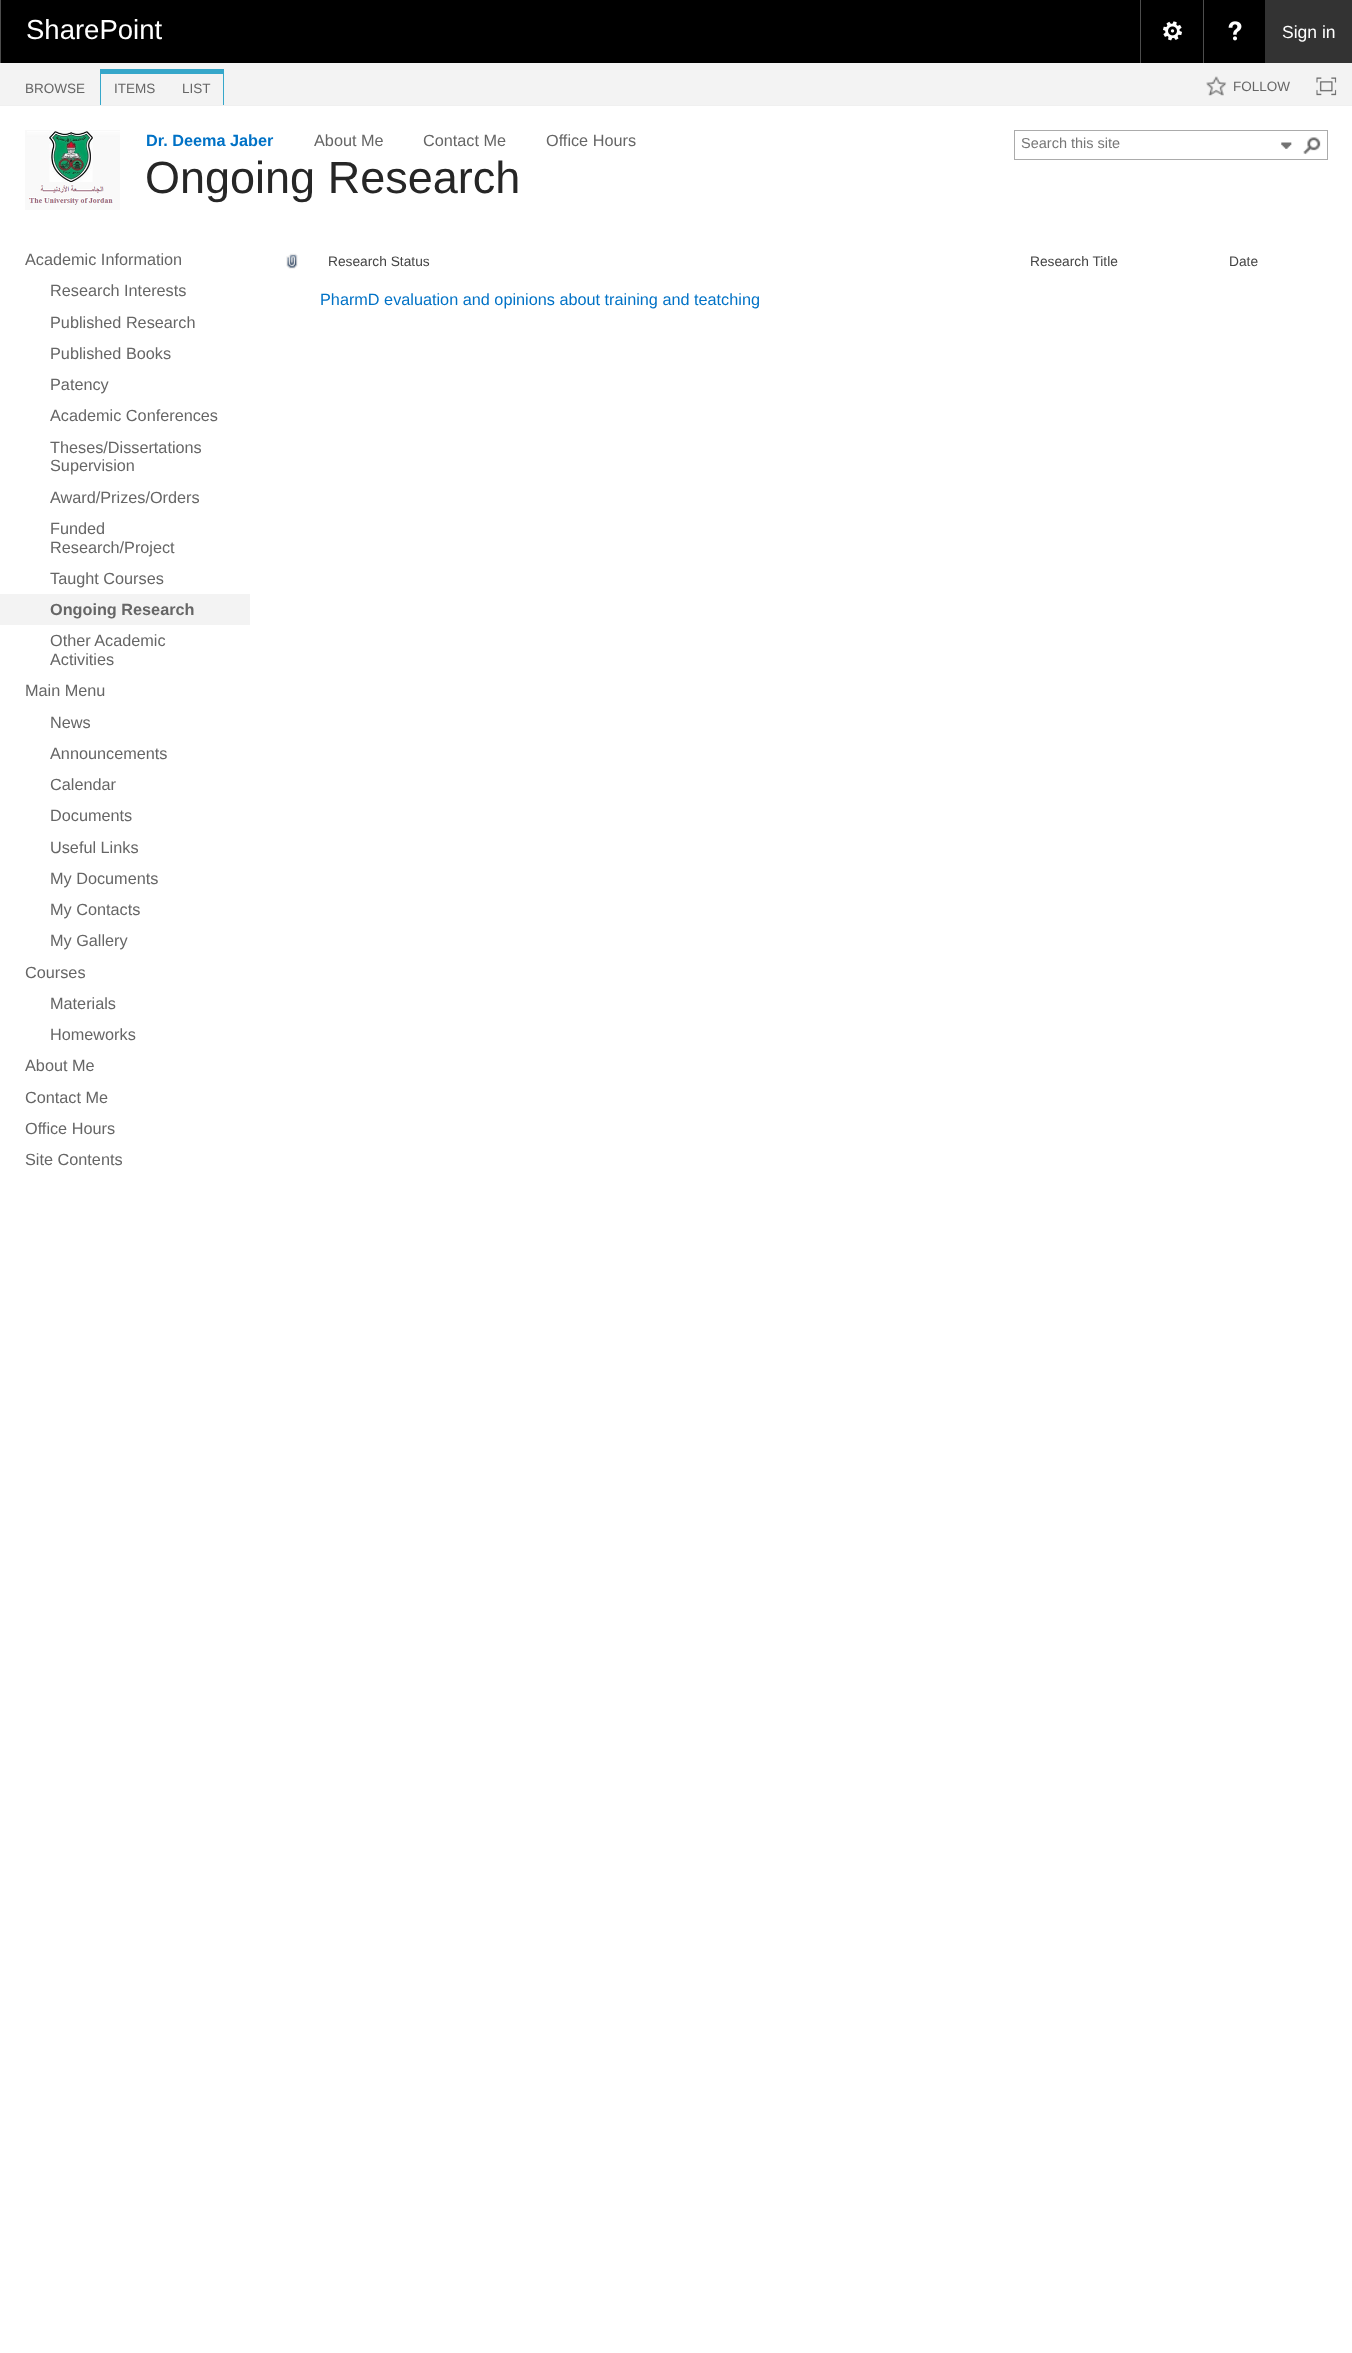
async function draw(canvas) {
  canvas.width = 1352;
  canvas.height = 2353;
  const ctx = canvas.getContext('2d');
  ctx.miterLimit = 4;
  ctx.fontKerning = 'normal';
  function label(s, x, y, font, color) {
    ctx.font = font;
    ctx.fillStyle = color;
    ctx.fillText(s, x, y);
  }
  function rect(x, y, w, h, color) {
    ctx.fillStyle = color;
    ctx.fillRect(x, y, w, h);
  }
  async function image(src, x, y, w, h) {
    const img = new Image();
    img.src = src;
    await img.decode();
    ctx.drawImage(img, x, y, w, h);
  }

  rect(0, 0, 1352, 2353, '#fff');
  rect(1, 0, 1264, 63, '#000');
  rect(0, 0, 1, 63, '#4d4d4d');
  label('SharePoint', 26, 39, '27.5px Liberation Sans', '#fff');
  rect(1140, 0, 1, 63, '#4d4d4d');
  await image('assets/img1.png', 1163, 21, 19, 20);
  rect(1203, 0, 1, 63, '#4d4d4d');
  await image('assets/img2.png', 1228, 21, 14, 20);
  rect(1265, 0, 87, 63, '#333');
  label('Sign in', 1282, 38, '17.5px Liberation Sans', '#fff');
  rect(0, 63, 1352, 42, '#f3f3f3');
  rect(0, 105, 1352, 1, '#f0f0f0');
  label('BROWSE', 25, 93, '13.5px Liberation Sans', '#666');
  rect(100, 69, 124, 5, '#36a7ca');
  rect(100, 74, 1, 31, '#36a7ca');
  label('ITEMS', 114, 93, '13.5px Liberation Sans', '#666');
  rect(223, 74, 1, 31, '#36a7ca');
  label('LIST', 182, 93, '13.5px Liberation Sans', '#666');
  await image('assets/img3.png', 1206, 76, 21, 20);
  label('FOLLOW', 1233, 91, '13.5px Liberation Sans', '#666');
  await image('assets/img4.png', 1316, 77, 21, 19);
  await image('assets/img5.png', 25, 130, 95, 80);
  label('Dr. Deema Jaber', 146, 146, 'bold 16.25px Liberation Sans', '#0072c6');
  label('About Me', 314, 146, '16.25px Liberation Sans', '#666');
  label('Contact Me', 423, 146, '16.25px Liberation Sans', '#666');
  label('Office Hours', 546, 146, '16.25px Liberation Sans', '#666');
  label('Ongoing Research', 145, 193, '45px Liberation Sans', '#262626');
  ctx.strokeStyle = '#ababab';
  ctx.strokeRect(1014.5, 130.5, 313, 29);
  label('Search this site', 1021, 148, '14.5px Liberation Sans', '#777');
  await image('assets/img6.png', 1281, 142, 11, 7);
  await image('assets/img7.png', 1303, 137, 18, 18);
  label('Academic Information', 25, 265, '16.25px Liberation Sans', '#666');
  label('Research Interests', 50, 296, '16.25px Liberation Sans', '#666');
  label('Published Research', 50, 328, '16.25px Liberation Sans', '#666');
  label('Published Books', 50, 359, '16.25px Liberation Sans', '#666');
  label('Patency', 50, 390, '16.25px Liberation Sans', '#666');
  label('Academic Conferences', 50, 421, '16.25px Liberation Sans', '#666');
  label('Theses/Dissertations', 50, 453, '16.25px Liberation Sans', '#666');
  label('Supervision', 50, 471, '16.25px Liberation Sans', '#666');
  label('Award/Prizes/Orders', 50, 503, '16.25px Liberation Sans', '#666');
  label('Funded', 50, 534, '16.25px Liberation Sans', '#666');
  label('Research/Project', 50, 553, '16.25px Liberation Sans', '#666');
  label('Taught Courses', 50, 584, '16.25px Liberation Sans', '#666');
  rect(0, 594, 250, 31, '#f3f3f3');
  label('Ongoing Research', 50, 615, 'bold 16.25px Liberation Sans', '#666');
  label('Other Academic', 50, 646, '16.25px Liberation Sans', '#666');
  label('Activities', 50, 665, '16.25px Liberation Sans', '#666');
  label('Main Menu', 25, 696, '16.25px Liberation Sans', '#666');
  label('News', 50, 728, '16.25px Liberation Sans', '#666');
  label('Announcements', 50, 759, '16.25px Liberation Sans', '#666');
  label('Calendar', 50, 790, '16.25px Liberation Sans', '#666');
  label('Documents', 50, 821, '16.25px Liberation Sans', '#666');
  label('Useful Links', 50, 853, '16.25px Liberation Sans', '#666');
  label('My Documents', 50, 884, '16.25px Liberation Sans', '#666');
  label('My Contacts', 50, 915, '16.25px Liberation Sans', '#666');
  label('My Gallery', 50, 946, '16.25px Liberation Sans', '#666');
  label('Courses', 25, 978, '16.25px Liberation Sans', '#666');
  label('Materials', 50, 1009, '16.25px Liberation Sans', '#666');
  label('Homeworks', 50, 1040, '16.25px Liberation Sans', '#666');
  label('About Me', 25, 1071, '16.25px Liberation Sans', '#666');
  label('Contact Me', 25, 1103, '16.25px Liberation Sans', '#666');
  label('Office Hours', 25, 1134, '16.25px Liberation Sans', '#666');
  label('Site Contents', 25, 1165, '16.25px Liberation Sans', '#666');
  await image('assets/img8.png', 286, 253, 12, 16);
  label('Research Status', 328, 266, '13.75px Liberation Sans', '#444');
  label('Research Title', 1030, 266, '13.75px Liberation Sans', '#444');
  label('Date', 1229, 266, '13.75px Liberation Sans', '#444');
  label('PharmD evaluation and opinions about training and teatching', 320, 305, '16.25px Liberation Sans', '#0072c6');
}

draw(document.querySelector('canvas'));
